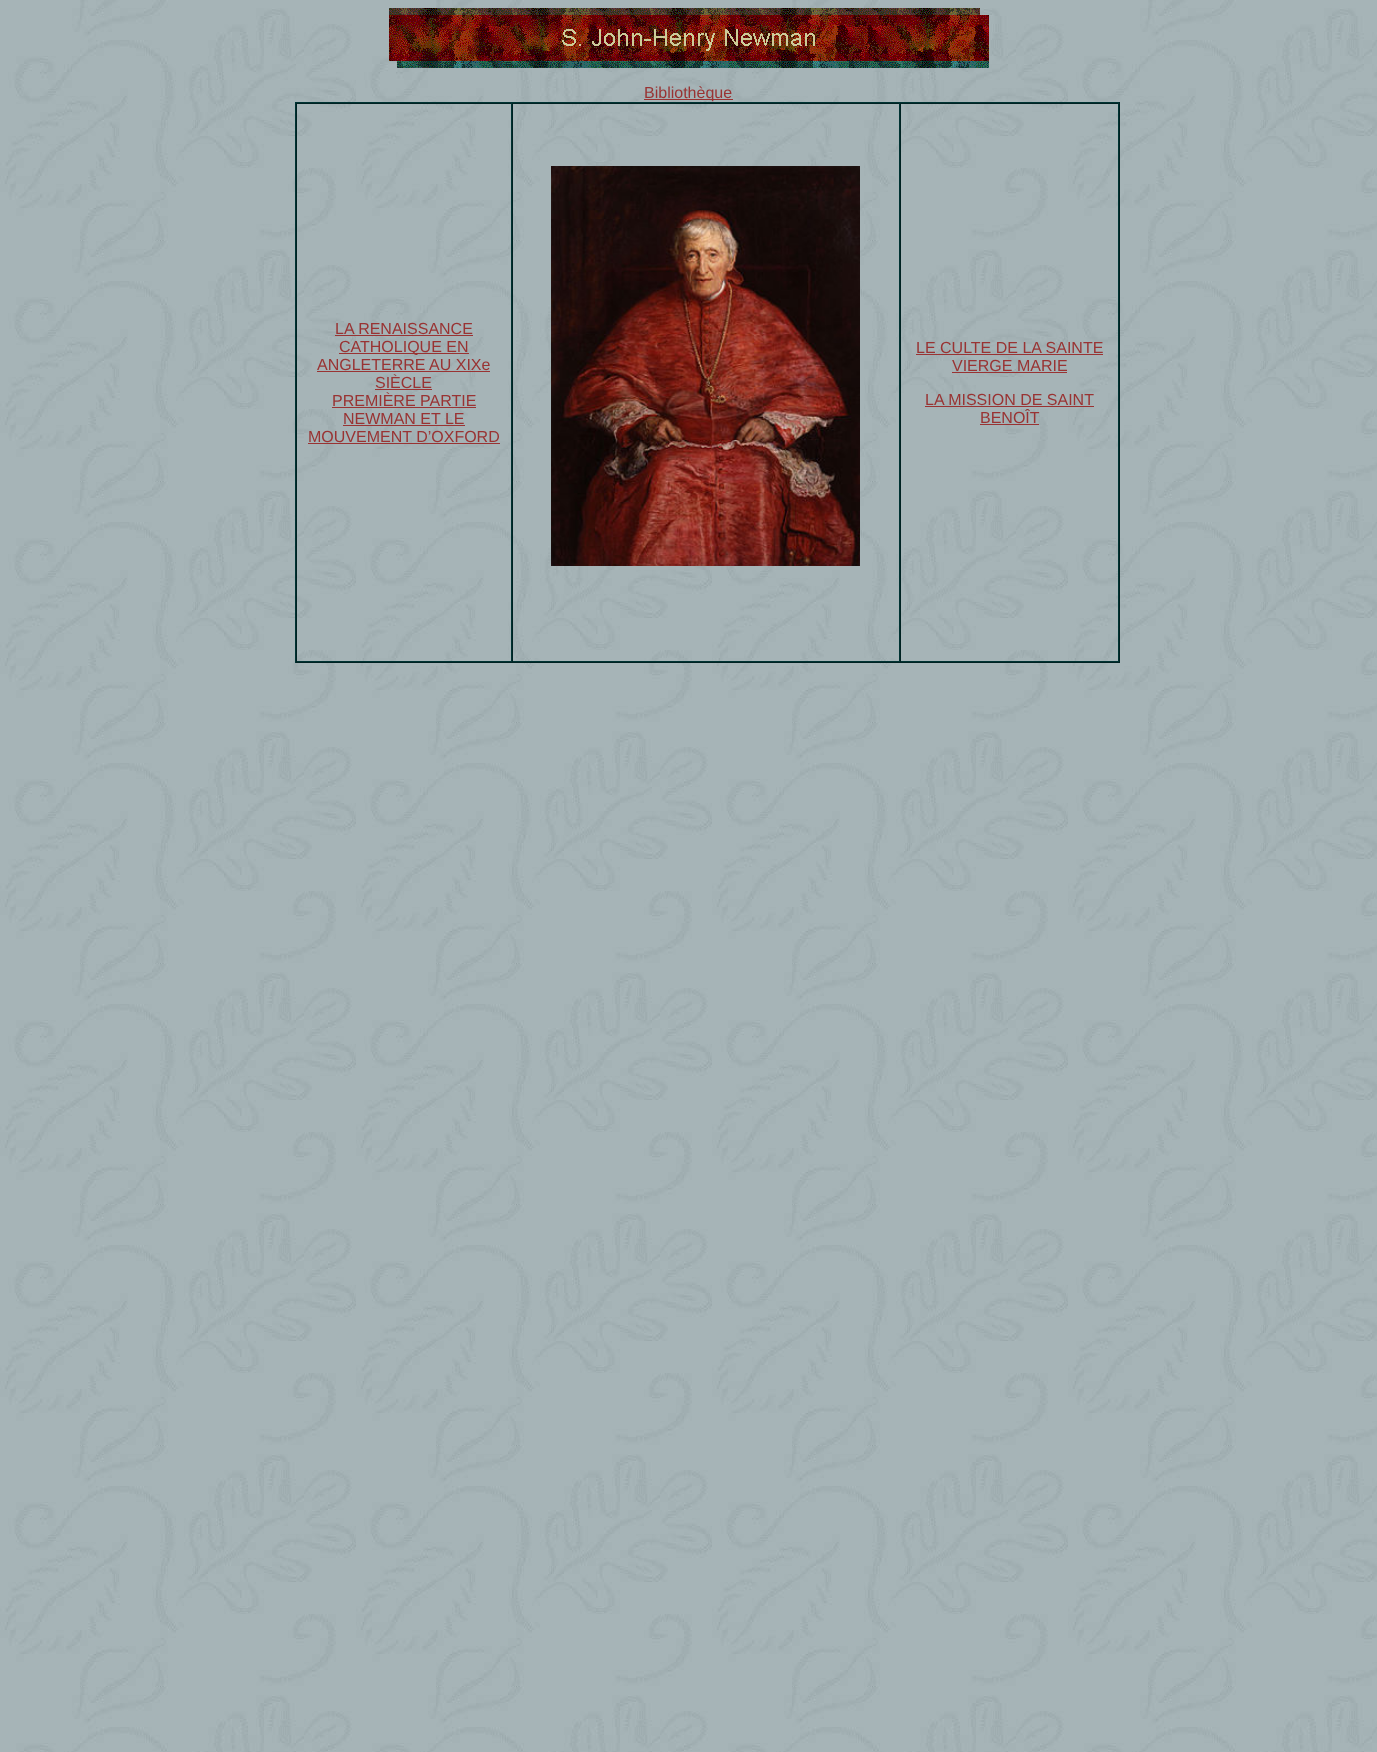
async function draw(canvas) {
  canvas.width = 1377;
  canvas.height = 1752;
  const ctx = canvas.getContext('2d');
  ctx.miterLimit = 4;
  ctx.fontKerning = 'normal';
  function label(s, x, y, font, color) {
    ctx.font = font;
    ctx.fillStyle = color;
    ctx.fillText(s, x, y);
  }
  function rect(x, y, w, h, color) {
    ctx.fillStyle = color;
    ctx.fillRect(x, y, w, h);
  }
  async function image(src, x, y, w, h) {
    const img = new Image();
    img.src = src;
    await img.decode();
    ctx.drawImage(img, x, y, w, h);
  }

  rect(0, 0, 1377, 1752, '#fff');
  await image('assets/img1.png', 0, 0, 1377, 1752);
  await image('assets/img2.png', 389, 8, 600, 60);
  rect(644, 99, 89, 1, '#933');
  label('Bibliothèque', 644, 98, '16px Liberation Sans', '#933');
  rect(295, 102, 825, 1, '#033');
  rect(1119, 102, 1, 561, '#022');
  rect(295, 662, 825, 1, '#022');
  rect(295, 102, 1, 561, '#033');
  rect(296, 103, 823, 1, '#022');
  rect(511, 103, 1, 559, '#033');
  rect(296, 661, 216, 1, '#033');
  rect(296, 103, 1, 559, '#022');
  label('LA RENAISSANCE', 335, 334, '16px Liberation Sans', '#933');
  rect(335, 335, 138, 1, '#933');
  rect(339, 353, 130, 1, '#933');
  label('CATHOLIQUE EN', 339, 352, '16px Liberation Sans', '#933');
  label('ANGLETERRE AU XIXe', 317, 370, '16px Liberation Sans', '#933');
  rect(317, 371, 173, 1, '#933');
  label('SIÈCLE', 375, 388, '16px Liberation Sans', '#933');
  rect(375, 389, 57, 1, '#933');
  label('PREMIÈRE PARTIE', 332, 406, '16px Liberation Sans', '#933');
  rect(332, 407, 144, 1, '#933');
  label('NEWMAN ET LE', 343, 424, '16px Liberation Sans', '#933');
  rect(343, 425, 122, 1, '#933');
  label('MOUVEMENT D’OXFORD', 308, 442, '16px Liberation Sans', '#933');
  rect(308, 443, 192, 1, '#933');
  rect(899, 103, 1, 559, '#033');
  rect(512, 661, 388, 1, '#033');
  rect(512, 103, 1, 559, '#022');
  await image('assets/img3.png', 551, 166, 309, 400);
  rect(1118, 103, 1, 559, '#033');
  rect(900, 661, 219, 1, '#033');
  rect(900, 103, 1, 559, '#022');
  label('LE CULTE DE LA SAINTE', 916, 353, '16px Liberation Sans', '#933');
  rect(916, 354, 187, 1, '#933');
  label('VIERGE MARIE', 952, 371, '16px Liberation Sans', '#933');
  rect(952, 372, 115, 1, '#933');
  label('LA MISSION DE SAINT', 925, 405, '16px Liberation Sans', '#933');
  rect(925, 406, 169, 1, '#933');
  label('BENOÎT', 980, 423, '16px Liberation Sans', '#933');
  rect(980, 424, 59, 1, '#933');
}

draw(document.querySelector('canvas'));
